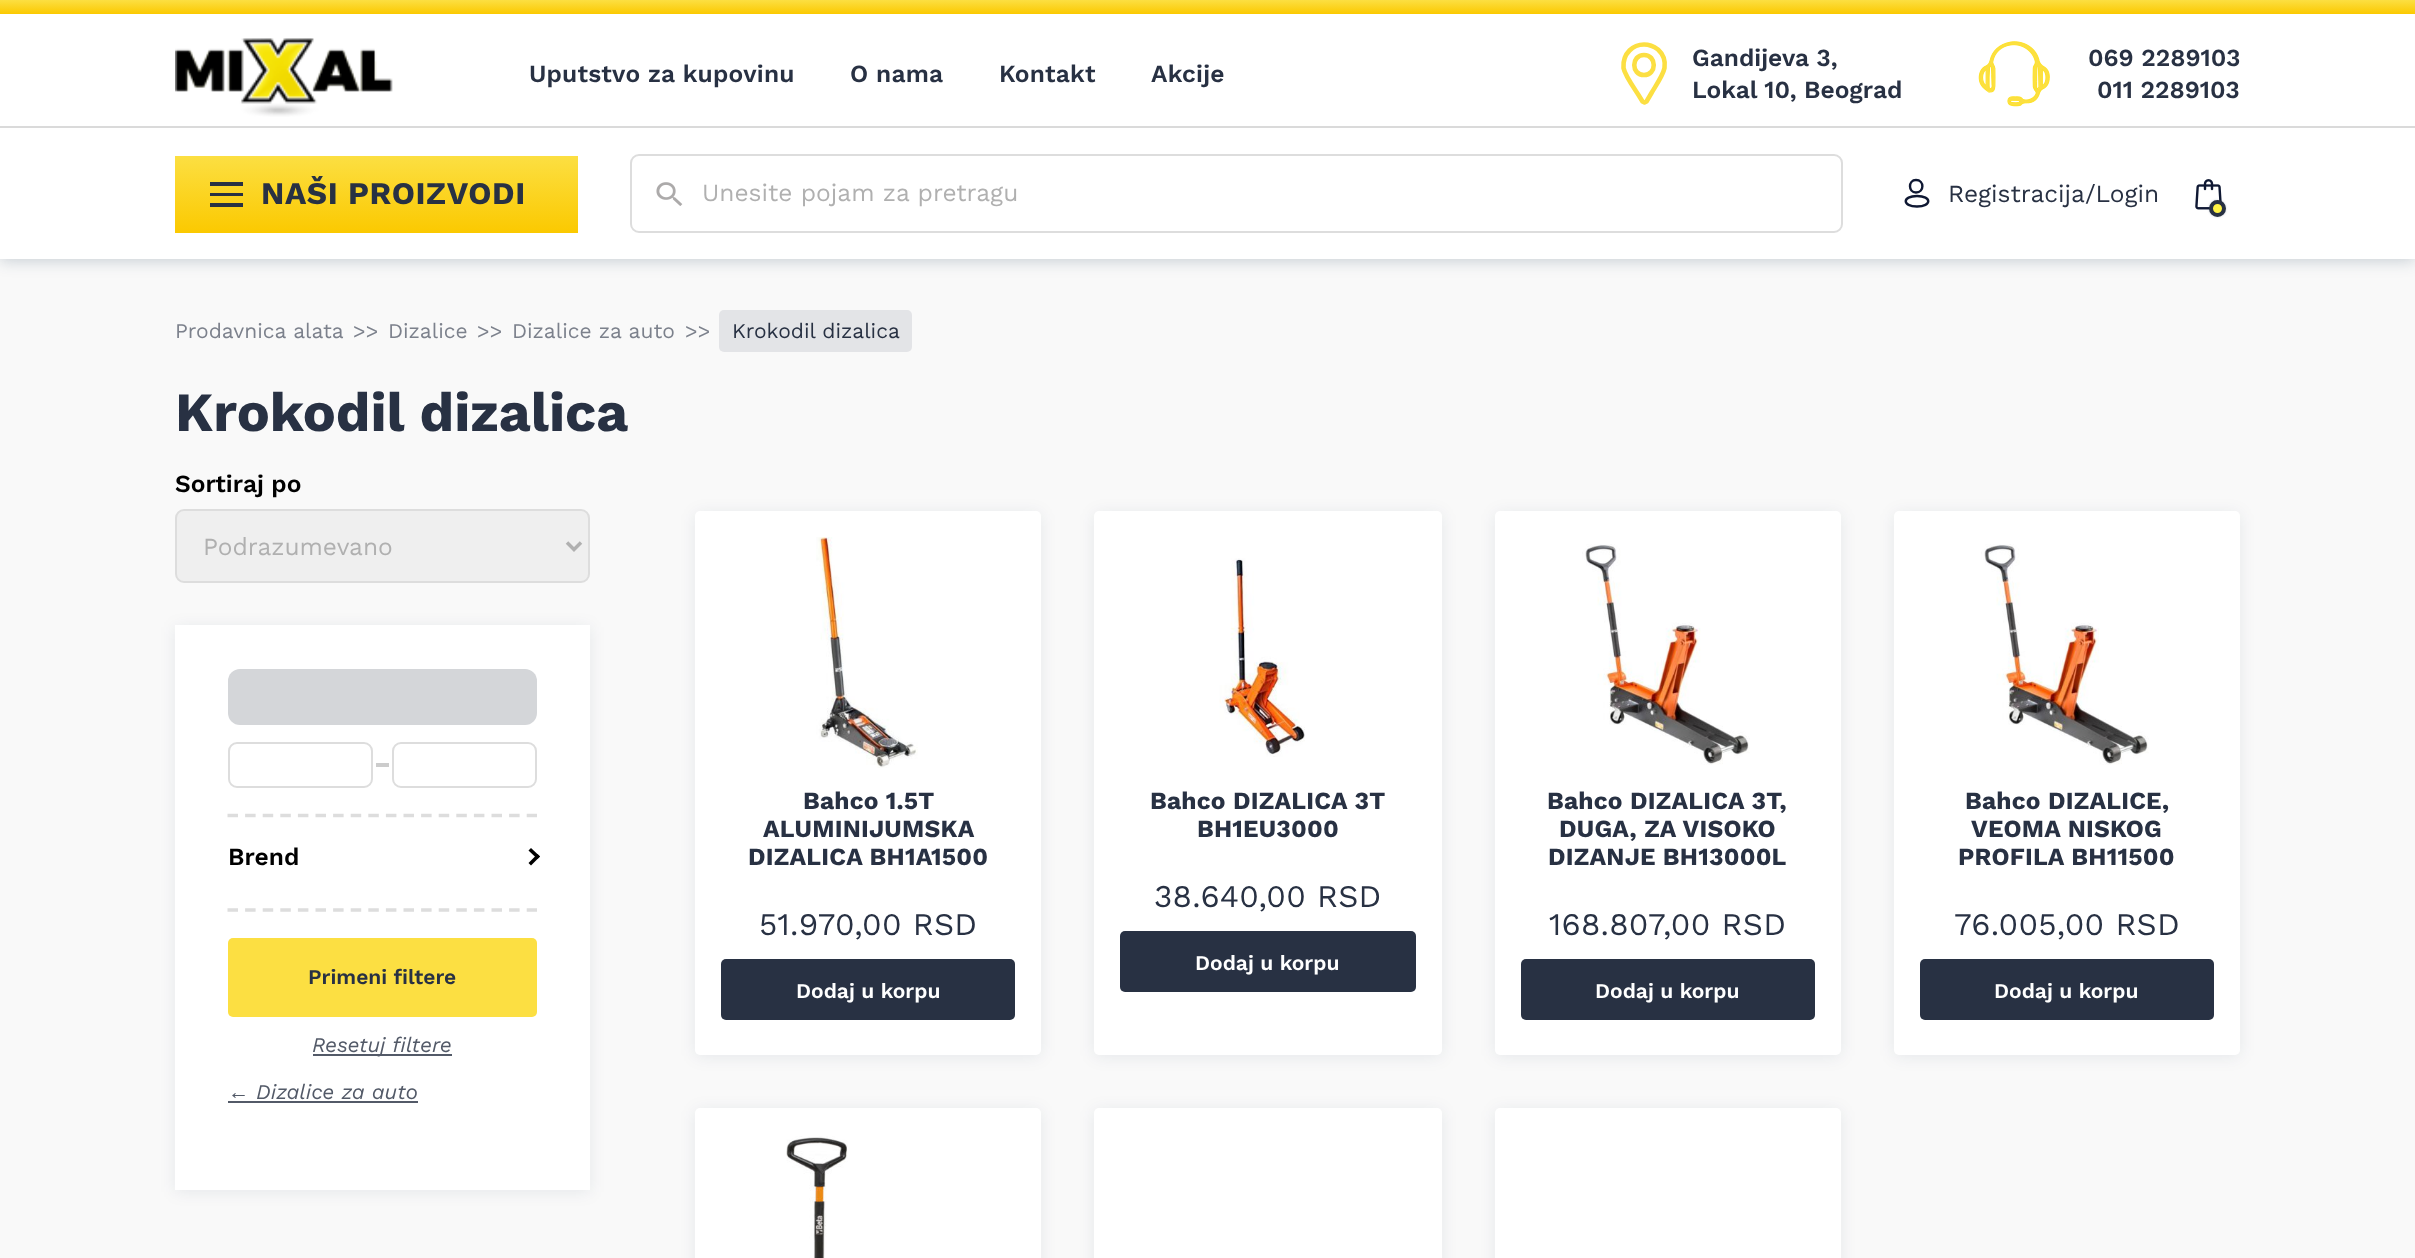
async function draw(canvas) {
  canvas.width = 2415;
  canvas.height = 1258;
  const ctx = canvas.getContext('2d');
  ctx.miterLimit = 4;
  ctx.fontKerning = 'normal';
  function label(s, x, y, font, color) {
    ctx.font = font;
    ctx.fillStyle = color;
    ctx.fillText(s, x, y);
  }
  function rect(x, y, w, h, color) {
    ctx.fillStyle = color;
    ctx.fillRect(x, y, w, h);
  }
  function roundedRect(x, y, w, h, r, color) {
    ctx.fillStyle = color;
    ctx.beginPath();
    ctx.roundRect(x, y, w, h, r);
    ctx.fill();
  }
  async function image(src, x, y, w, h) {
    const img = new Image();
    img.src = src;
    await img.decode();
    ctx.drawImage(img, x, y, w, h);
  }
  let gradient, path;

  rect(0, 0, 2415, 1258, '#f9f9f9');
  ctx.fillStyle = '#00234033';
  ctx.filter = 'blur(8px)';
  ctx.beginPath();
  ctx.rect(0, 2, 2415, 259);
  ctx.fill();
  ctx.filter = 'none';
  rect(0, 14, 2415, 245, '#fff');
  gradient = ctx.createLinearGradient(1208, 0, 1208, 14);
  gradient.addColorStop(0, '#fcdf42');
  gradient.addColorStop(1, '#fbc900');
  ctx.fillStyle = gradient;
  ctx.fillRect(0, 0, 2415, 14);
  rect(0, 126, 2415, 2, '#dadada');
  await image('assets/img1.png', 175, 38, 218, 79);
  ctx.letterSpacing = '0.2px';
  label('Uputstvo za kupovinu', 529, 82, '600 24.5px Work Sans', '#283143');
  label('O nama', 850, 82, '600 24.5px Work Sans', '#283143');
  label('Kontakt', 999, 82, '600 24.5px Work Sans', '#283143');
  label('Akcije', 1151, 82, '600 24.5px Work Sans', '#283143');
  path = new Path2D('M1644 75C1657 75 1657 55 1644 55C1631 55 1631 75 1644 75ZM1644 44.5C1649 44.5 1654 46.5 1658 49.5C1663 54 1665.5 61 1664.5 68C1663 75.5 1655.5 86 1651.5 93L1646.5 101.5L1644.5 102.5L1642.5 101.5L1638.5 95C1634 88 1625 75.5 1623.5 68C1623 61.5 1625 55 1629.5 50.5C1633.5 46.5 1638.5 44.5 1644 44.5Z');
  ctx.strokeStyle = '#fcdf42';
  ctx.lineWidth = 4.6;
  ctx.lineCap = 'round';
  ctx.lineJoin = 'round';
  ctx.stroke(path);
  ctx.letterSpacing = '0px';
  label('Gandijeva 3,', 1692, 66, '600 24.5px Work Sans', '#283143');
  label('Lokal 10, Beograd', 1692, 98, '600 24.5px Work Sans', '#283143');
  await image('assets/img2.png', 1978, 41, 72, 66);
  label('069 2289103', 2088, 66, '600 24.5px Work Sans', '#283143');
  label('011 2289103', 2097, 98, '600 24.5px Work Sans', '#283143');
  gradient = ctx.createLinearGradient(376, 156, 376, 233);
  gradient.addColorStop(0, '#fcdf42');
  gradient.addColorStop(1, '#fbc900');
  ctx.fillStyle = gradient;
  ctx.fillRect(175, 156, 403, 77);
  rect(210, 182, 33, 4, '#283143');
  rect(210, 193, 33, 3, '#283143');
  rect(210, 203, 33, 4, '#283143');
  ctx.letterSpacing = '0.6px';
  label('NAŠI PROIZVODI', 261, 204, 'bold 31.5px Work Sans', '#283143');
  ctx.beginPath();
  ctx.roundRect(631, 155, 1211, 77, 8);
  ctx.strokeStyle = '#ddd';
  ctx.lineWidth = 2;
  ctx.lineJoin = 'miter';
  ctx.stroke();
  await image('assets/img3.png', 656, 182, 27, 24);
  ctx.letterSpacing = '0px';
  label('Unesite pojam za pretragu', 702, 201, '24.5px Work Sans', '#b0b0b0');
  path = new Path2D('M1916 180C1924.5 180 1924.5 192.5 1916 192.5C1908 192.5 1908 180 1916 180ZM1917 196C1932 196 1932 206.5 1917 206.5C1902 206.5 1902 196 1917 196Z');
  ctx.strokeStyle = '#0f1833';
  ctx.lineWidth = 2.4;
  ctx.lineJoin = 'round';
  ctx.stroke(path);
  label('Registracija/Login', 1948, 202, '24.5px Work Sans', '#283143');
  await image('assets/img4.png', 2195, 179, 27, 31);
  ctx.fillStyle = '#00234033';
  ctx.filter = 'blur(1px)';
  ctx.beginPath();
  ctx.roundRect(2209, 200, 17, 17, 8.5);
  ctx.fill();
  ctx.filter = 'none';
  ctx.fillStyle = '#fff345';
  ctx.beginPath();
  ctx.arc(2217.5, 208.5, 6.5, 0, 2 * Math.PI);
  ctx.fill();
  ctx.strokeStyle = '#283143';
  ctx.lineWidth = 4;
  ctx.stroke();
  label('Prodavnica alata', 175, 338, '21px Work Sans', '#7c818c');
  label('>>', 353, 338, '21px Work Sans', '#7c818c');
  label('Dizalice', 388, 338, '21px Work Sans', '#7c818c');
  label('>>', 477, 338, '21px Work Sans', '#7c818c');
  label('Dizalice za auto', 512, 338, '21px Work Sans', '#7c818c');
  label('>>', 685, 338, '21px Work Sans', '#7c818c');
  roundedRect(719, 310, 193, 42, 5, '#e3e4e7');
  label('Krokodil dizalica', 732, 338, '21px Work Sans', '#283143');
  label('Krokodil dizalica', 175, 431, 'bold 55.25px Work Sans', '#283143');
  label('Sortiraj po', 175, 492, '600 24.5px Work Sans', '#000');
  ctx.fillStyle = '#efefef';
  ctx.beginPath();
  ctx.roundRect(176, 510, 413, 72, 8);
  ctx.fill();
  ctx.strokeStyle = '#ddd';
  ctx.lineWidth = 2;
  ctx.lineJoin = 'miter';
  ctx.stroke();
  path = new Path2D('M567 542.5L574 549.5L581 542.5');
  ctx.strokeStyle = '#b0b0b0';
  ctx.lineWidth = 3.5;
  ctx.lineCap = 'butt';
  ctx.stroke(path);
  label('Podrazumevano', 203, 555, '24.5px Work Sans', '#b0b0b0');
  ctx.fillStyle = '#00194014';
  ctx.filter = 'blur(8px)';
  ctx.beginPath();
  ctx.rect(175, 627, 415, 565);
  ctx.fill();
  ctx.filter = 'none';
  rect(175, 625, 415, 565, '#fff');
  path = new Path2D('M227.5 815.5H537');
  ctx.strokeStyle = '#ddd';
  ctx.setLineDash([10.5, 7.1]);
  ctx.stroke(path);
  roundedRect(228, 669, 309, 56, 12, '#d4d6d9');
  ctx.beginPath();
  ctx.roundRect(229, 743, 143, 44, 8);
  ctx.lineWidth = 2;
  ctx.setLineDash([]);
  ctx.stroke();
  rect(376, 763, 13, 4, '#ccc');
  ctx.beginPath();
  ctx.roundRect(393, 743, 143, 44, 8);
  ctx.stroke();
  path = new Path2D('M227.5 910H537');
  ctx.lineWidth = 3.5;
  ctx.setLineDash([10.5, 7.1]);
  ctx.stroke(path);
  label('Brend', 228, 865, '600 24.5px Work Sans', '#000');
  path = new Path2D('M528.5 850.5L531 848L540 856.5L537.5 859Z');
  ctx.fill(path);
  path = new Path2D('M528.5 863L537.5 854L540 856.5L531 865.5Z');
  ctx.fill(path);
  roundedRect(228, 938, 309, 79, 5, '#fcdf42');
  label('Primeni filtere', 308, 984, '600 21px Work Sans', '#283143');
  rect(313, 1054, 139, 2, '#535a68');
  label('Resetuj filtere', 312, 1052, 'italic 21px Work Sans', '#535a68');
  label('←', 228, 1099, 'italic 21px Liberation Sans', '#535a68');
  rect(228, 1101, 190, 2, '#535a68');
  label('Dizalice za auto', 256, 1099, 'italic 21px Work Sans', '#535a68');
  ctx.fillStyle = '#00194014';
  ctx.filter = 'blur(8px)';
  ctx.beginPath();
  ctx.roundRect(695, 513, 346, 544, 5);
  ctx.fill();
  ctx.filter = 'none';
  roundedRect(695, 511, 346, 544, 5, '#fff');
  await image('assets/img5.png', 816, 537, 102, 231);
  ctx.letterSpacing = '0.2px';
  label('Bahco 1.5T', 803, 809, 'bold 24.5px Work Sans', '#283143');
  label('ALUMINIJUMSKA', 763, 837, 'bold 24.5px Work Sans', '#283143');
  label('DIZALICA BH1A1500', 748, 865, 'bold 24.5px Work Sans', '#283143');
  ctx.letterSpacing = '0.25px';
  label('51.970,00 RSD', 759, 935, '31.5px Work Sans', '#283143');
  roundedRect(721, 959, 294, 61, 5, '#283143');
  ctx.letterSpacing = '0px';
  label('Dodaj u korpu', 796, 998, '600 21px Work Sans', '#fff');
  ctx.fillStyle = '#00194014';
  ctx.filter = 'blur(8px)';
  ctx.beginPath();
  ctx.roundRect(1094, 513, 348, 544, 5);
  ctx.fill();
  ctx.filter = 'none';
  roundedRect(1094, 511, 348, 544, 5, '#fff');
  await image('assets/img6.png', 1219, 558, 86, 199);
  ctx.letterSpacing = '0.2px';
  label('Bahco DIZALICA 3T', 1150, 809, 'bold 24.5px Work Sans', '#283143');
  label('BH1EU3000', 1197, 837, 'bold 24.5px Work Sans', '#283143');
  ctx.letterSpacing = '0.25px';
  label('38.640,00 RSD', 1154, 907, '31.5px Work Sans', '#283143');
  roundedRect(1120, 931, 296, 61, 5, '#283143');
  ctx.letterSpacing = '0px';
  label('Dodaj u korpu', 1195, 970, '600 21px Work Sans', '#fff');
  ctx.fillStyle = '#00194014';
  ctx.filter = 'blur(8px)';
  ctx.beginPath();
  ctx.roundRect(1495, 513, 346, 544, 5);
  ctx.fill();
  ctx.filter = 'none';
  roundedRect(1495, 511, 346, 544, 5, '#fff');
  await image('assets/img7.png', 1582, 544, 168, 221);
  ctx.letterSpacing = '0.2px';
  label('Bahco DIZALICA 3T,', 1547, 809, 'bold 24.5px Work Sans', '#283143');
  label('DUGA, ZA VISOKO', 1559, 837, 'bold 24.5px Work Sans', '#283143');
  label('DIZANJE BH13000L', 1548, 865, 'bold 24.5px Work Sans', '#283143');
  ctx.letterSpacing = '0.25px';
  label('168.807,00 RSD', 1549, 935, '31.5px Work Sans', '#283143');
  roundedRect(1521, 959, 294, 61, 5, '#283143');
  ctx.letterSpacing = '0px';
  label('Dodaj u korpu', 1595, 998, '600 21px Work Sans', '#fff');
  ctx.fillStyle = '#00194014';
  ctx.filter = 'blur(8px)';
  ctx.beginPath();
  ctx.roundRect(1894, 513, 346, 544, 5);
  ctx.fill();
  ctx.filter = 'none';
  roundedRect(1894, 511, 346, 544, 5, '#fff');
  await image('assets/img7.png', 1981, 544, 168, 221);
  ctx.letterSpacing = '0.2px';
  label('Bahco DIZALICE,', 1965, 809, 'bold 24.5px Work Sans', '#283143');
  label('VEOMA NISKOG', 1971, 837, 'bold 24.5px Work Sans', '#283143');
  label('PROFILA BH11500', 1958, 865, 'bold 24.5px Work Sans', '#283143');
  ctx.letterSpacing = '0.25px';
  label('76.005,00 RSD', 1954, 935, '31.5px Work Sans', '#283143');
  roundedRect(1920, 959, 294, 61, 5, '#283143');
  ctx.letterSpacing = '0px';
  label('Dodaj u korpu', 1994, 998, '600 21px Work Sans', '#fff');
  ctx.fillStyle = '#00194014';
  ctx.filter = 'blur(8px)';
  ctx.beginPath();
  ctx.roundRect(695, 1110, 346, 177, 5);
  ctx.fill();
  ctx.filter = 'none';
  roundedRect(695, 1108, 346, 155, 5, '#fff');
  await image('assets/img8.png', 786, 1136, 62, 122);
  ctx.fillStyle = '#00194014';
  ctx.filter = 'blur(8px)';
  ctx.beginPath();
  ctx.roundRect(1094, 1110, 348, 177, 5);
  ctx.fill();
  ctx.filter = 'none';
  roundedRect(1094, 1108, 348, 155, 5, '#fff');
  ctx.fillStyle = '#00194014';
  ctx.filter = 'blur(8px)';
  ctx.beginPath();
  ctx.roundRect(1495, 1110, 346, 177, 5);
  ctx.fill();
  ctx.filter = 'none';
  roundedRect(1495, 1108, 346, 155, 5, '#fff');
}

draw(document.querySelector('canvas'));
